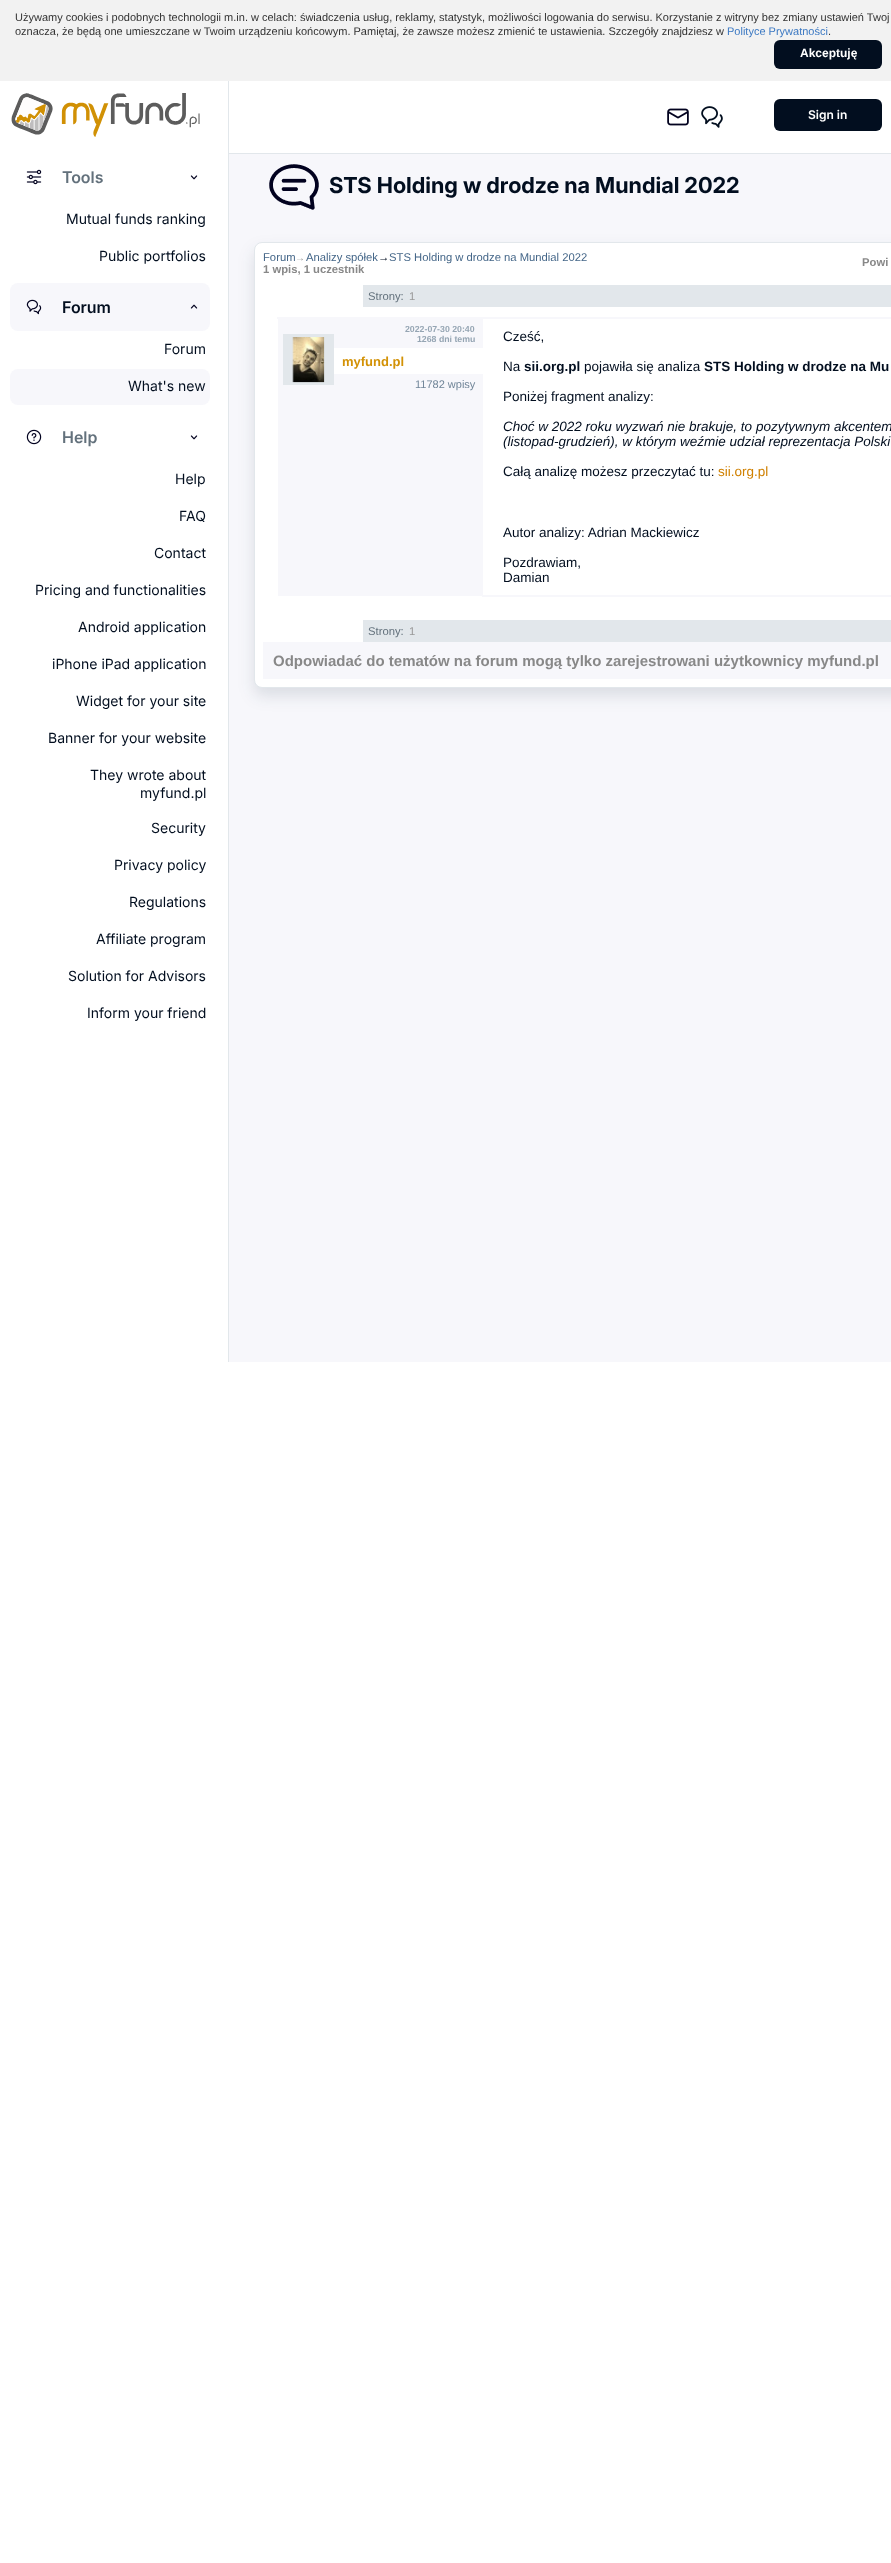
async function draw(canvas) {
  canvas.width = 891;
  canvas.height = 2563;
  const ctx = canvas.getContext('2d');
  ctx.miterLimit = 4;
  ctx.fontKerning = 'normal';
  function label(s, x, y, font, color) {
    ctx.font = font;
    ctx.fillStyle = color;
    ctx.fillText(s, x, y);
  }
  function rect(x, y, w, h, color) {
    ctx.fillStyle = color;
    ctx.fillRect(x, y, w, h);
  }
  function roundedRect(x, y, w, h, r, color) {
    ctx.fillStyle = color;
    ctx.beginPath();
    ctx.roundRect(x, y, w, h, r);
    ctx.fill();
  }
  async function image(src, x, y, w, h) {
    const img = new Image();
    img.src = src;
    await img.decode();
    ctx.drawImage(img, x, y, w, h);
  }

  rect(0, 0, 891, 2563, '#fff');
  rect(0, 0, 891, 81, '#f2f2f2');
  label('Używamy cookies i podobnych technologii m.in. w celach: świadczenia usług, reklamy, statystyk, możliwości logowania do serwisu. Korzystanie z witryny bez zmiany ustawień Twoj', 15, 21, '11px Liberation Sans', '#333');
  label('oznacza, że będą one umieszczane w Twoim urządzeniu końcowym. Pamiętaj, że zawsze możesz zmienić te ustawienia. Szczegóły znajdziesz w', 15, 35, '11px Liberation Sans', '#333');
  label('Polityce Prywatności', 727, 35, '11px Liberation Sans', '#3c79c3');
  label('.', 828, 35, '11px Liberation Sans', '#333');
  roundedRect(774, 40, 108, 29, 6, '#020e1f');
  label('Akceptuję', 800, 57, 'bold 12px Liberation Sans', '#fff');
  await image('assets/img1.png', 11, 93, 189, 44);
  await image('assets/img2.png', 26, 169, 16, 16);
  label('Tools', 62, 183, '600 16px Inter', '#63717c');
  await image('assets/img3.png', 190, 175, 8, 5);
  label('Mutual funds ranking', 66, 224, '14px Inter', '#020e1f');
  label('Public portfolios', 99, 261, '14px Inter', '#020e1f');
  roundedRect(10, 283, 200, 48, 8, '#f7f7fb');
  await image('assets/img4.png', 26, 299, 16, 16);
  label('Forum', 62, 313, '600 16px Inter', '#020e1f');
  await image('assets/img5.png', 190, 304, 8, 5);
  label('Forum', 164, 354, '14px Inter', '#020e1f');
  roundedRect(10, 369, 200, 36, 8, '#f7f7fb');
  label('What\'s new', 128, 391, '14px Inter', '#020e1f');
  await image('assets/img6.png', 26, 429, 16, 16);
  label('Help', 62, 443, '600 16px Inter', '#63717c');
  await image('assets/img3.png', 190, 435, 8, 5);
  label('Help', 175, 484, '14px Inter', '#020e1f');
  label('FAQ', 179, 521, '14px Inter', '#020e1f');
  label('Contact', 154, 558, '14px Inter', '#020e1f');
  label('Pricing and functionalities', 35, 595, '14px Inter', '#020e1f');
  label('Android application', 78, 632, '14px Inter', '#020e1f');
  label('iPhone iPad application', 52, 669, '14px Inter', '#020e1f');
  label('Widget for your site', 76, 706, '14px Inter', '#020e1f');
  label('Banner for your website', 48, 743, '14px Inter', '#020e1f');
  label('They wrote about', 90, 780, '14px Inter', '#020e1f');
  label('myfund.pl', 140, 798, '14px Inter', '#020e1f');
  label('Security', 151, 833, '14px Inter', '#020e1f');
  label('Privacy policy', 114, 870, '14px Inter', '#020e1f');
  label('Regulations', 129, 907, '14px Inter', '#020e1f');
  label('Affiliate program', 96, 944, '14px Inter', '#020e1f');
  label('Solution for Advisors', 68, 981, '14px Inter', '#020e1f');
  label('Inform your friend', 87, 1018, '14px Inter', '#020e1f');
  rect(228, 81, 1, 1281, '#e2e7eb');
  rect(229, 153, 662, 1, '#e2e7eb');
  await image('assets/img7.png', 667, 108, 22, 18);
  await image('assets/img8.png', 701, 106, 22, 22);
  roundedRect(774, 99, 108, 32, 6, '#020e1f');
  label('Sign in', 808, 119, '600 12px "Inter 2"', '#fff');
  rect(229, 154, 662, 1208, '#f7f7fb');
  await image('assets/img9.png', 269, 164, 50, 46);
  label('STS Holding w drodze na Mundial 2022', 329, 193, 'bold 22px Inter', '#020e1f');
  ctx.fillStyle = '#0d28381f';
  ctx.filter = 'blur(8px)';
  ctx.beginPath();
  ctx.roundRect(254, 250, 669, 446, 8);
  ctx.fill();
  ctx.filter = 'none';
  ctx.fillStyle = '#fff';
  ctx.beginPath();
  ctx.roundRect(254.5, 242.5, 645, 445, 7.5);
  ctx.fill();
  ctx.strokeStyle = '#e2e7eb';
  ctx.stroke();
  label('Forum', 263, 261, '11.25px Liberation Sans', '#468');
  label('→', 295, 261, '10px Liberation Sans', '#999');
  label('Analizy spółek', 306, 261, '11.25px Liberation Sans', '#468');
  label('→', 378, 261, '11.25px Liberation Sans', '#020e1f');
  label('STS Holding w drodze na Mundial 2022', 389, 261, '11.25px Liberation Sans', '#468');
  label('1 wpis, 1 uczestnik', 263, 273, 'bold 11.25px Liberation Sans', '#888');
  label('Powi', 862, 266, 'bold 11.25px Liberation Sans', '#888');
  rect(363, 285, 528, 22, '#e2e7eb');
  label('Strony:', 368, 300, '11.25px Liberation Sans', '#63717c');
  label('1', 409, 300, '11.25px Liberation Sans', '#999');
  rect(278, 319, 205, 277, '#f7f7fb');
  rect(283, 334, 51, 51, '#e2e7eb');
  await image('assets/img10.png', 292, 337, 33, 46);
  rect(334, 348, 149, 26, '#fff');
  label('myfund.pl', 342, 366, 'bold 13px Liberation Sans', '#d39206');
  label('2022-07-30 20:40', 405, 332, 'bold 8.75px Liberation Sans', '#95a5b3');
  label('1268 dni temu', 417, 342, 'bold 8.75px Liberation Sans', '#95a5b3');
  label('11782 wpisy', 415, 388, '11px Liberation Sans', '#708598');
  rect(277, 317, 614, 2, '#f7f7fb');
  rect(482, 595, 409, 2, '#f7f7fb');
  label('Cześć,', 503, 341, '13.5px Liberation Sans', '#020e1f');
  label('Na', 503, 371, '13.5px Liberation Sans', '#020e1f');
  label('sii.org.pl', 524, 371, 'bold 13.5px Liberation Sans', '#020e1f');
  label('pojawiła się analiza', 584, 371, '13.5px Liberation Sans', '#020e1f');
  label('STS Holding w drodze na Mu', 704, 371, 'bold 13.5px Liberation Sans', '#020e1f');
  label('Poniżej fragment analizy:', 503, 401, '13.5px Liberation Sans', '#020e1f');
  label('Choć w 2022 roku wyzwań nie brakuje, to pozytywnym akcentem', 503, 431, 'italic 13.5px Liberation Sans', '#020e1f');
  label('(listopad-grudzień), w którym weźmie udział reprezentacja Polski', 503, 446, 'italic 13.5px Liberation Sans', '#020e1f');
  label('Całą analizę możesz przeczytać tu:', 503, 476, '13.5px Liberation Sans', '#020e1f');
  label('sii.org.pl', 718, 476, '13.5px Liberation Sans', '#d08000');
  label('Autor analizy: Adrian Mackiewicz', 503, 537, '13.5px Liberation Sans', '#020e1f');
  label('Pozdrawiam,', 503, 567, '13.5px Liberation Sans', '#020e1f');
  label('Damian', 503, 582, '13.5px Liberation Sans', '#020e1f');
  rect(363, 620, 528, 22, '#e2e7eb');
  label('Strony:', 368, 635, '11.25px Liberation Sans', '#63717c');
  label('1', 409, 635, '11.25px Liberation Sans', '#999');
  rect(263, 642, 628, 37, '#f7f7fb');
  label('Odpowiadać do tematów na forum mogą tylko zarejestrowani użytkownicy myfund.pl', 273, 666, 'bold 15px Liberation Sans', '#888');
}

draw(document.querySelector('canvas'));
